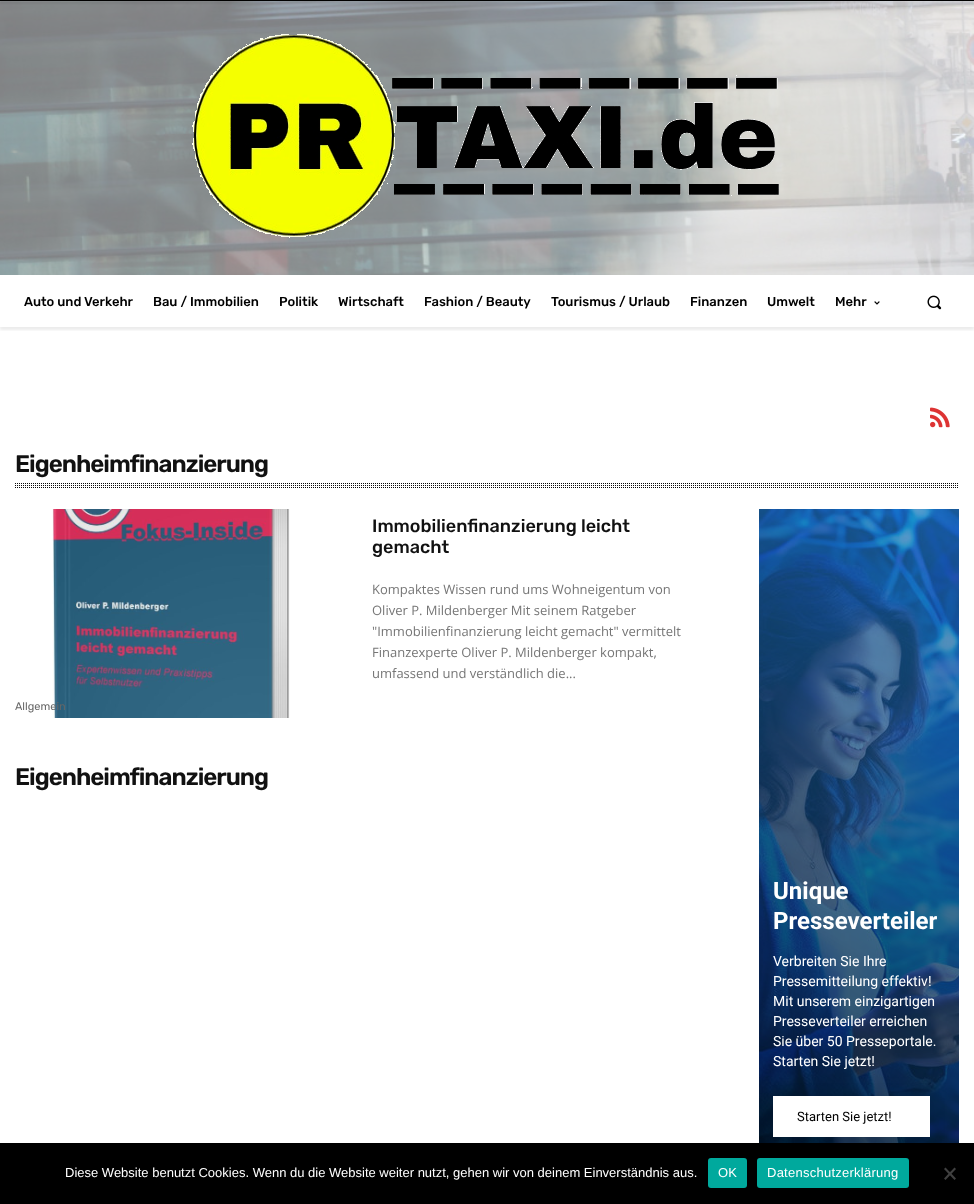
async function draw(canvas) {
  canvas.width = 974;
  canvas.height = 1204;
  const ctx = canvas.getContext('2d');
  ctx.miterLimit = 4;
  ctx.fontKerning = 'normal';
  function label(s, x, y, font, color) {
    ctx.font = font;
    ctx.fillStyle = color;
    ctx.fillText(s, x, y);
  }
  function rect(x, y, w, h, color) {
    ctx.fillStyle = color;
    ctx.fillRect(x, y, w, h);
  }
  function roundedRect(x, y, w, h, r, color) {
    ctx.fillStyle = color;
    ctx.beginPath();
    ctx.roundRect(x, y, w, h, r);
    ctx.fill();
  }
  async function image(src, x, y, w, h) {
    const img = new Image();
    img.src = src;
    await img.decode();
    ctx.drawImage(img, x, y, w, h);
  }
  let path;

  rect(0, 0, 974, 1204, '#fff');
  rect(0, 0, 974, 1, '#000');
  await image('assets/img1.png', 0, 1, 974, 274);
  ctx.fillStyle = '#0a000026';
  ctx.filter = 'blur(1px)';
  ctx.beginPath();
  ctx.rect(0, 2, 974, 1);
  ctx.fill();
  ctx.filter = 'none';
  await image('assets/img2.png', 192, 34, 587, 204);
  ctx.save();
  ctx.beginPath();
  ctx.rect(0, 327, 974, 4);
  ctx.clip();
  ctx.fillStyle = '#00000014';
  ctx.filter = 'blur(1.5px)';
  ctx.beginPath();
  ctx.rect(0, 278, 974, 52);
  ctx.fill();
  ctx.filter = 'none';
  ctx.restore();
  label('Auto und Verkehr', 24, 306, '500 13px Rubik', '#000');
  label('Bau / Immobilien', 153, 306, '500 13px Rubik', '#000');
  label('Politik', 279, 306, '500 13px Rubik', '#000');
  label('Wirtschaft', 338, 306, '500 13px Rubik', '#000');
  label('Fashion / Beauty', 424, 306, '500 13px Rubik', '#000');
  label('Tourismus / Urlaub', 551, 306, '500 13px Rubik', '#000');
  label('Finanzen', 690, 306, '500 13px Rubik', '#000');
  label('Umwelt', 767, 306, '500 13px Rubik', '#000');
  label('Mehr', 835, 306, '500 13px Rubik', '#000');
  await image('assets/img3.png', 874, 301, 6, 4);
  await image('assets/img4.png', 927, 295, 15, 15);
  await image('assets/img5.png', 930, 407, 20, 21);
  ctx.letterSpacing = '-1px';
  label('Eigenheimfinanzierung', 15, 472, '600 24px Rubik', '#111');
  path = new Path2D('M15 483.5H959');
  ctx.strokeStyle = '#0a0a0a';
  ctx.setLineDash([1, 1]);
  ctx.stroke(path);
  path = new Path2D('M15 485.5H959');
  ctx.stroke(path);
  path = new Path2D('M15 487.5H959');
  ctx.stroke(path);
  ctx.letterSpacing = '0px';
  label('Immobilienfinanzierung leicht', 372, 532, '500 18px Rubik', '#111');
  label('gemacht', 372, 553, '500 18px Rubik', '#111');
  label('Kompaktes Wissen rund ums Wohneigentum von', 372, 594, '13px Open Sans', '#767676');
  label('Oliver P. Mildenberger Mit seinem Ratgeber', 372, 615, '13px Open Sans', '#767676');
  label('"Immobilienfinanzierung leicht gemacht" vermittelt', 372, 636, '13px Open Sans', '#767676');
  label('Finanzexperte Oliver P. Mildenberger kompakt,', 372, 657, '13px Open Sans', '#767676');
  label('umfassend und verständlich die...', 372, 678, '13px Open Sans', '#767676');
  await image('assets/img6.png', 52, 509, 238, 209);
  label('Allgemein', 15, 710, '11px Rubik', '#666');
  ctx.letterSpacing = '-1px';
  label('Eigenheimfinanzierung', 15, 785, '600 24px Rubik', '#111');
  await image('assets/img7.png', 759, 509, 200, 634);
  ctx.letterSpacing = '0px';
  label('Unique', 773, 899, 'bold 24px Roboto', '#fff');
  label('Presseverteiler', 773, 929, 'bold 24px Roboto', '#fff');
  label('Verbreiten Sie Ihre', 773, 966, '14px Roboto', '#fff');
  label('Pressemitteilung effektiv!', 773, 986, '14px Roboto', '#fff');
  label('Mit unserem einzigartigen', 773, 1006, '14px Roboto', '#fff');
  label('Presseverteiler erreichen', 773, 1026, '14px Roboto', '#fff');
  label('Sie über 50 Presseportale.', 773, 1046, '14px Roboto', '#fff');
  label('Starten Sie jetzt!', 773, 1066, '14px Roboto', '#fff');
  ctx.fillStyle = '#0000001a';
  ctx.filter = 'blur(8px)';
  ctx.beginPath();
  ctx.rect(773, 1098, 157, 41);
  ctx.fill();
  ctx.filter = 'none';
  rect(773, 1096, 157, 41, '#fff');
  label('Starten Sie jetzt!', 797, 1121, '13px Roboto', '#000');
  rect(0, 1143, 974, 61, '#000');
  label('Diese Website benutzt Cookies. Wenn du die Website weiter nutzt, gehen wir von deinem Einverständnis aus.', 65, 1177, '13px Liberation Sans', '#fff');
  roundedRect(708, 1158, 39, 30, 3, '#00a99d');
  ctx.letterSpacing = '0.25px';
  label('OK', 718, 1177, '13px Liberation Sans', '#fff');
  roundedRect(757, 1158, 152, 30, 3, '#00a99d');
  label('Datenschutzerklärung', 767, 1177, '13px Liberation Sans', '#fff');
  ctx.fillStyle = '#404040';
  path = new Path2D('M954.5 1167.5L956 1169L945.5 1180L944 1178.5Z');
  ctx.fill(path);
  path = new Path2D('M944 1169L945.5 1167.5L956 1178.5L954.5 1180Z');
  ctx.fill(path);
}

draw(document.querySelector('canvas'));
